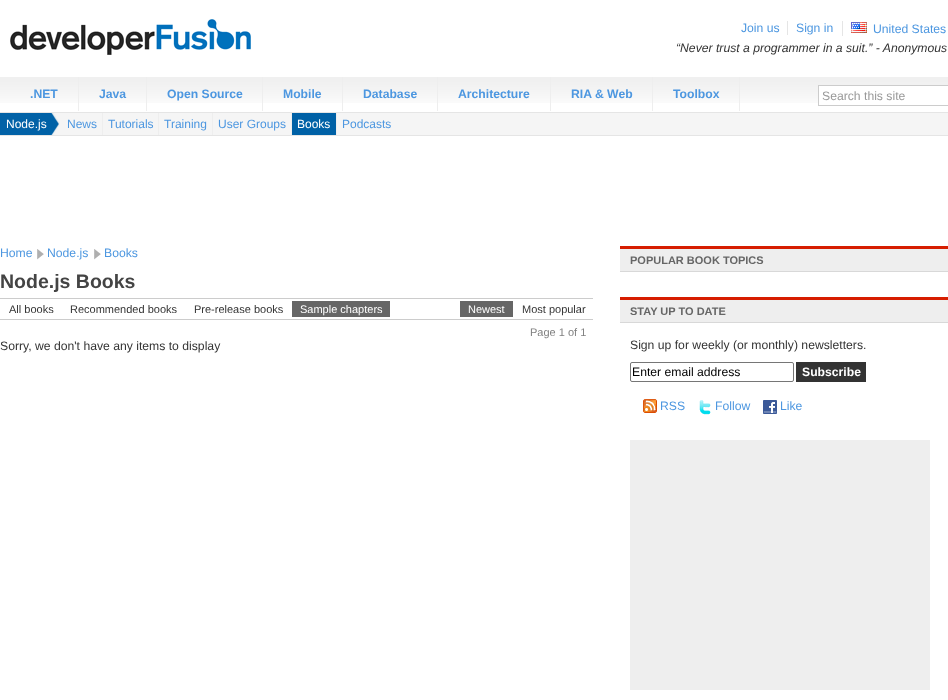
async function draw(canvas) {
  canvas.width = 948;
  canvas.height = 700;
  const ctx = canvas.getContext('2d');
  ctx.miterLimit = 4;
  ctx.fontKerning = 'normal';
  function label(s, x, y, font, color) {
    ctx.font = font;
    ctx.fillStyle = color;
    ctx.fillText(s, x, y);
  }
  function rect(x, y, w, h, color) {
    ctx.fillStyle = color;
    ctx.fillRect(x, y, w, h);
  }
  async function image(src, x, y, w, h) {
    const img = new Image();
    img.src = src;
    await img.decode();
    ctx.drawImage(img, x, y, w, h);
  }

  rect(0, 0, 948, 700, '#fff');
  await image('assets/img1.png', 10, 19, 241, 36);
  label('Join us', 741, 32, '12.2px Liberation Sans', '#4d97e0');
  rect(787, 21, 1, 14, '#e5e5e5');
  label('Sign in', 796, 32, '12.2px Liberation Sans', '#4d97e0');
  rect(842, 21, 1, 15, '#e5e5e5');
  await image('assets/img2.png', 851, 22, 16, 11);
  label('United States', 873, 33, '12.2px Liberation Sans', '#4d97e0');
  label('“Never trust a programmer in a suit.” - Anonymous', 676, 52, 'italic 12.2px Liberation Sans', '#333');
  await image('assets/img3.png', 0, 77, 948, 26);
  rect(0, 112, 948, 1, '#e5e5e5');
  rect(78, 77, 1, 34, '#eee');
  label('.NET', 30, 98, 'bold 12.2px Liberation Sans', '#4d97e0');
  rect(146, 77, 1, 34, '#eee');
  label('Java', 99, 98, 'bold 12.2px Liberation Sans', '#4d97e0');
  rect(262, 77, 1, 34, '#eee');
  label('Open Source', 167, 98, 'bold 12.2px Liberation Sans', '#4d97e0');
  rect(342, 77, 1, 34, '#eee');
  label('Mobile', 283, 98, 'bold 12.2px Liberation Sans', '#4d97e0');
  rect(437, 77, 1, 34, '#eee');
  label('Database', 363, 98, 'bold 12.2px Liberation Sans', '#4d97e0');
  rect(550, 77, 1, 34, '#eee');
  label('Architecture', 458, 98, 'bold 12.2px Liberation Sans', '#4d97e0');
  rect(652, 77, 1, 34, '#eee');
  label('RIA & Web', 571, 98, 'bold 12.2px Liberation Sans', '#4d97e0');
  rect(739, 77, 1, 34, '#eee');
  label('Toolbox', 673, 98, 'bold 12.2px Liberation Sans', '#4d97e0');
  rect(819, 86, 129, 17, '#fff');
  ctx.strokeStyle = '#ccc';
  ctx.strokeRect(818.5, 85.5, 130, 20);
  label('Search this site', 822, 100, '12.2px Liberation Sans', '#999');
  rect(52, 113, 896, 22, '#f5f5f5');
  rect(0, 135, 948, 1, '#e5e5e5');
  await image('assets/img4.png', 0, 113, 60, 22);
  label('Node.js', 6, 128, '12px Liberation Sans', '#fff');
  rect(102, 113, 1, 22, '#eee');
  label('News', 67, 128, '12px Liberation Sans', '#4d97e0');
  rect(158, 113, 1, 22, '#eee');
  label('Tutorials', 108, 128, '12px Liberation Sans', '#4d97e0');
  rect(212, 113, 1, 22, '#eee');
  label('Training', 164, 128, '12px Liberation Sans', '#4d97e0');
  rect(291, 113, 1, 22, '#eee');
  label('User Groups', 218, 128, '12px Liberation Sans', '#4d97e0');
  rect(292, 113, 44, 22, '#0061a6');
  rect(336, 113, 1, 22, '#eee');
  label('Books', 297, 128, '12px Liberation Sans', '#fff');
  label('Podcasts', 342, 128, '12px Liberation Sans', '#4d97e0');
  label('Home', 0, 257, '12.2px Liberation Sans', '#4d97e0');
  await image('assets/img5.png', 37, 249, 7, 11);
  label('Node.js', 47, 257, '12.2px Liberation Sans', '#4d97e0');
  await image('assets/img5.png', 94, 249, 7, 11);
  label('Books', 104, 257, '12.2px Liberation Sans', '#4d97e0');
  label('Node.js Books', 0, 288, 'bold 19.5px Liberation Sans', '#444');
  rect(0, 298, 593, 1, '#ccc');
  rect(0, 319, 593, 1, '#ccc');
  label('All books', 9, 313, '11px Liberation Sans', '#333');
  label('Recommended books', 70, 313, '11px Liberation Sans', '#333');
  label('Pre-release books', 194, 313, '11px Liberation Sans', '#333');
  rect(292, 301, 98, 16, '#666');
  label('Sample chapters', 300, 313, '11px Liberation Sans', '#fff');
  rect(460, 301, 53, 16, '#666');
  label('Newest', 468, 313, '11px Liberation Sans', '#fff');
  label('Most popular', 522, 313, '11px Liberation Sans', '#333');
  label('Page 1 of 1', 530, 336, '11px Liberation Sans', '#808080');
  label('Sorry, we don\'t have any items to display', 0, 350, '12.2px Liberation Sans', '#333');
  rect(620, 246, 328, 3, '#d61d00');
  rect(620, 249, 328, 22, '#eee');
  rect(620, 271, 328, 1, '#d8d8d8');
  label('POPULAR BOOK TOPICS', 630, 264, 'bold 11px Liberation Sans', '#666');
  rect(620, 297, 328, 3, '#d61d00');
  rect(620, 300, 328, 22, '#eee');
  rect(620, 322, 328, 1, '#d8d8d8');
  label('STAY UP TO DATE', 630, 315, 'bold 11px Liberation Sans', '#666');
  label('Sign up for weekly (or monthly) newsletters.', 630, 349, '12.2px Liberation Sans', '#333');
  ctx.beginPath();
  ctx.roundRect(630.5, 362.5, 163, 19, 1.5);
  ctx.strokeStyle = '#767676';
  ctx.stroke();
  label('Enter email address', 632, 376, '12.2px Liberation Sans', '#000');
  rect(796, 362, 70, 20, '#333');
  label('Subscribe', 802, 376, 'bold 12.2px Liberation Sans', '#fff');
  await image('assets/img6.png', 643, 399, 14, 14);
  label('RSS', 660, 410, '12.2px Liberation Sans', '#4d97e0');
  await image('assets/img7.png', 699, 400, 12, 15);
  label('Follow', 715, 410, '12.2px Liberation Sans', '#4d97e0');
  await image('assets/img8.png', 763, 400, 14, 14);
  label('Like', 780, 410, '12.2px Liberation Sans', '#4d97e0');
  rect(630, 440, 300, 250, '#eee');
}

draw(document.querySelector('canvas'));
